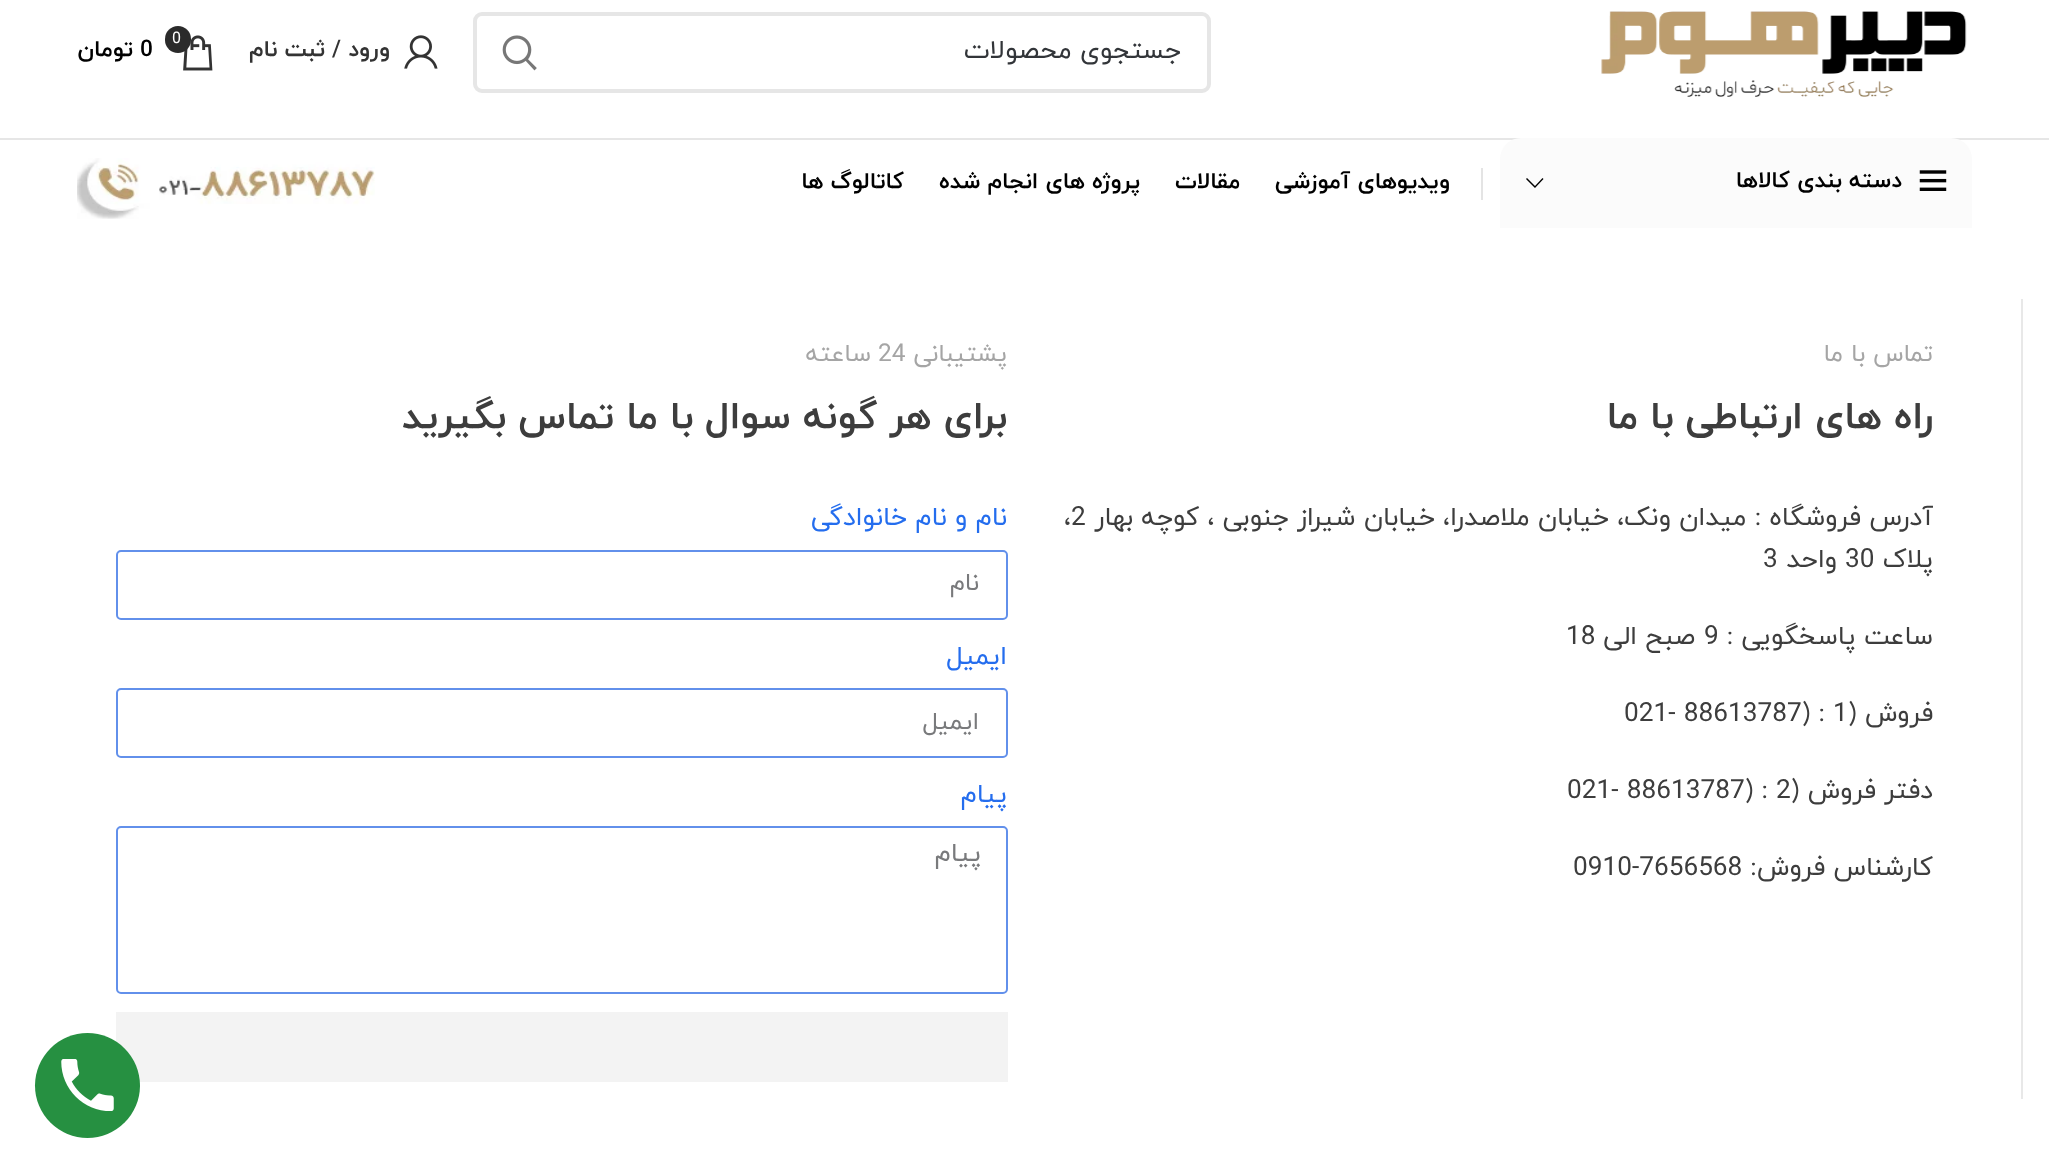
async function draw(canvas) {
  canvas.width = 2049;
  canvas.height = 1172;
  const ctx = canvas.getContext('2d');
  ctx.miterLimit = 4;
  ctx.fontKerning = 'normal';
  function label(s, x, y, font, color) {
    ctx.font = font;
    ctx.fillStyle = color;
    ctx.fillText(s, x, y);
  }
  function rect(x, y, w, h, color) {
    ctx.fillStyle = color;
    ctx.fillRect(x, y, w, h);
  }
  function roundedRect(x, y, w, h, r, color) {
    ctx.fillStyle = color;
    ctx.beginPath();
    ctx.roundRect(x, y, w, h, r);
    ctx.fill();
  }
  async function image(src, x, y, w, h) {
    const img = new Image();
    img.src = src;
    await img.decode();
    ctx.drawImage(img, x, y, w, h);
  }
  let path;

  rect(0, 0, 2049, 1172, '#fff');
  rect(0, 138, 2049, 2, '#e6e6e6');
  await image('assets/img1.png', 1601, 11, 366, 86);
  ctx.beginPath();
  ctx.roundRect(475, 14, 734, 77, 7);
  ctx.strokeStyle = '#e6e6e6';
  ctx.lineWidth = 4;
  ctx.stroke();
  ctx.direction = 'rtl';
  label('جستجوی محصولات', 1181, 58, '26.25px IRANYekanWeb', '#323539');
  await image('assets/img2.png', 502, 35, 35, 36);
  await image('assets/img3.png', 404, 35, 34, 34);
  label('ورود / ثبت نام', 390, 56, 'bold 22.75px IRANYekanWeb', '#333');
  await image('assets/img4.png', 183, 35, 30, 36);
  roundedRect(165, 26, 26, 27, 13, '#2b2b2b');
  ctx.direction = 'ltr';
  label('0', 172, 43, '16px IRANYekanWeb', '#fff');
  label('0', 140, 56, 'bold 22.75px IRANYekanWeb', '#000');
  ctx.direction = 'rtl';
  label('تومان', 133, 56, 'bold 22.75px IRANYekanWeb', '#000');
  ctx.fillStyle = '#fbfbfb';
  ctx.beginPath();
  ctx.roundRect(1500, 138, 472, 90, [21, 21, 0, 0]);
  ctx.fill();
  await image('assets/img5.png', 1919, 170, 28, 21);
  label('دسته بندی کالاها', 1902, 187, 'bold 22.75px IRANYekanWeb', '#000');
  path = new Path2D('M1542.5 178L1543.5 179L1535 188L1526 179L1527 178L1535 186Z');
  ctx.fill(path);
  rect(1481, 168, 2, 32, '#e4e4e4');
  label('ویدیوهای آموزشی', 1450, 188, 'bold 22.75px IRANYekanWeb', '#000');
  label('مقالات', 1240, 188, 'bold 22.75px IRANYekanWeb', '#000');
  label('پروژه های انجام شده', 1140, 188, 'bold 22.75px IRANYekanWeb', '#000');
  label('کاتالوگ ها', 904, 188, 'bold 22.75px IRANYekanWeb', '#000');
  await image('assets/img6.png', 77, 158, 298, 61);
  rect(2021, 299, 2, 800, '#e8e8e8');
  label('تماس با ما', 1933, 361, '24.5px IRANYekanWeb', '#a5a5a5');
  label('راه های ارتباطی با ما', 1933, 428, 'bold 38.5px IRANYekanWeb', '#3d3d3d');
  label('آدرس فروشگاه : میدان ونک، خیابان ملاصدرا، خیابان شیراز جنوبی ، کوچه بهار', 1933, 525, '26.25px IRANYekanWeb', '#3d3d3d');
  ctx.direction = 'ltr';
  label('،2', 1064, 525, '26.25px IRANYekanWeb', '#3d3d3d');
  ctx.direction = 'rtl';
  label('پلاک', 1933, 567, '26.25px IRANYekanWeb', '#3d3d3d');
  ctx.direction = 'ltr';
  label('30', 1845, 567, '26.25px IRANYekanWeb', '#3d3d3d');
  ctx.direction = 'rtl';
  label('واحد', 1837, 567, '26.25px IRANYekanWeb', '#3d3d3d');
  ctx.direction = 'ltr';
  label('3', 1763, 567, '26.25px IRANYekanWeb', '#3d3d3d');
  ctx.direction = 'rtl';
  label('ساعت پاسخگویی :', 1933, 644, '26.25px IRANYekanWeb', '#3d3d3d');
  ctx.direction = 'ltr';
  label('9', 1704, 644, '26.25px IRANYekanWeb', '#3d3d3d');
  ctx.direction = 'rtl';
  label('صبح الی', 1695, 644, '26.25px IRANYekanWeb', '#3d3d3d');
  ctx.direction = 'ltr';
  label('18', 1566, 644, '26.25px IRANYekanWeb', '#3d3d3d');
  ctx.direction = 'rtl';
  label('فروش (', 1933, 721, '26.25px IRANYekanWeb', '#3d3d3d');
  ctx.direction = 'ltr';
  label('021- 88613787) : 1', 1624, 721, '26.25px IRANYekanWeb', '#3d3d3d');
  ctx.direction = 'rtl';
  label('دفتر فروش (', 1933, 798, '26.25px IRANYekanWeb', '#3d3d3d');
  ctx.direction = 'ltr';
  label('021- 88613787) : 2', 1567, 798, '26.25px IRANYekanWeb', '#3d3d3d');
  ctx.direction = 'rtl';
  label('کارشناس فروش:', 1933, 875, '26.25px IRANYekanWeb', '#3d3d3d');
  ctx.direction = 'ltr';
  label('0910-7656568', 1573, 875, '26.25px IRANYekanWeb', '#3d3d3d');
  ctx.direction = 'rtl';
  label('پشتیبانی', 1007, 361, '24.5px IRANYekanWeb', '#a5a5a5');
  ctx.direction = 'ltr';
  label('24', 878, 361, '24.5px IRANYekanWeb', '#a5a5a5');
  ctx.direction = 'rtl';
  label('ساعته', 871, 361, '24.5px IRANYekanWeb', '#a5a5a5');
  label('برای هر گونه سوال با ما تماس بگیرید', 1007, 428, 'bold 38.5px IRANYekanWeb', '#3d3d3d');
  label('نام و نام خانوادگی', 1007, 525, '26.25px IRANYekanWeb', '#246dee');
  ctx.beginPath();
  ctx.roundRect(117, 551, 890, 68, 4);
  ctx.strokeStyle = '#6290eb';
  ctx.lineWidth = 2;
  ctx.stroke();
  label('نام', 979, 590, '24.5px IRANYekanWeb', '#797a7c');
  label('ایمیل', 1007, 664, '26.25px IRANYekanWeb', '#246dee');
  ctx.beginPath();
  ctx.roundRect(117, 689, 890, 68, 4);
  ctx.stroke();
  label('ایمیل', 979, 729, '24.5px IRANYekanWeb', '#797a7c');
  label('پیام', 1007, 802, '26.25px IRANYekanWeb', '#246dee');
  ctx.beginPath();
  ctx.roundRect(117, 827, 890, 166, 4);
  ctx.stroke();
  label('پیام', 981, 861, '26.25px IRANYekanWeb', '#797a7c');
  rect(116, 1012, 892, 70, '#f3f3f3');
  ctx.fillStyle = '#269041';
  ctx.beginPath();
  ctx.arc(87.5, 1085.5, 52.5, 0, 2 * Math.PI);
  ctx.fill();
  await image('assets/img7.png', 61, 1059, 53, 52);
}

draw(document.querySelector('canvas'));
